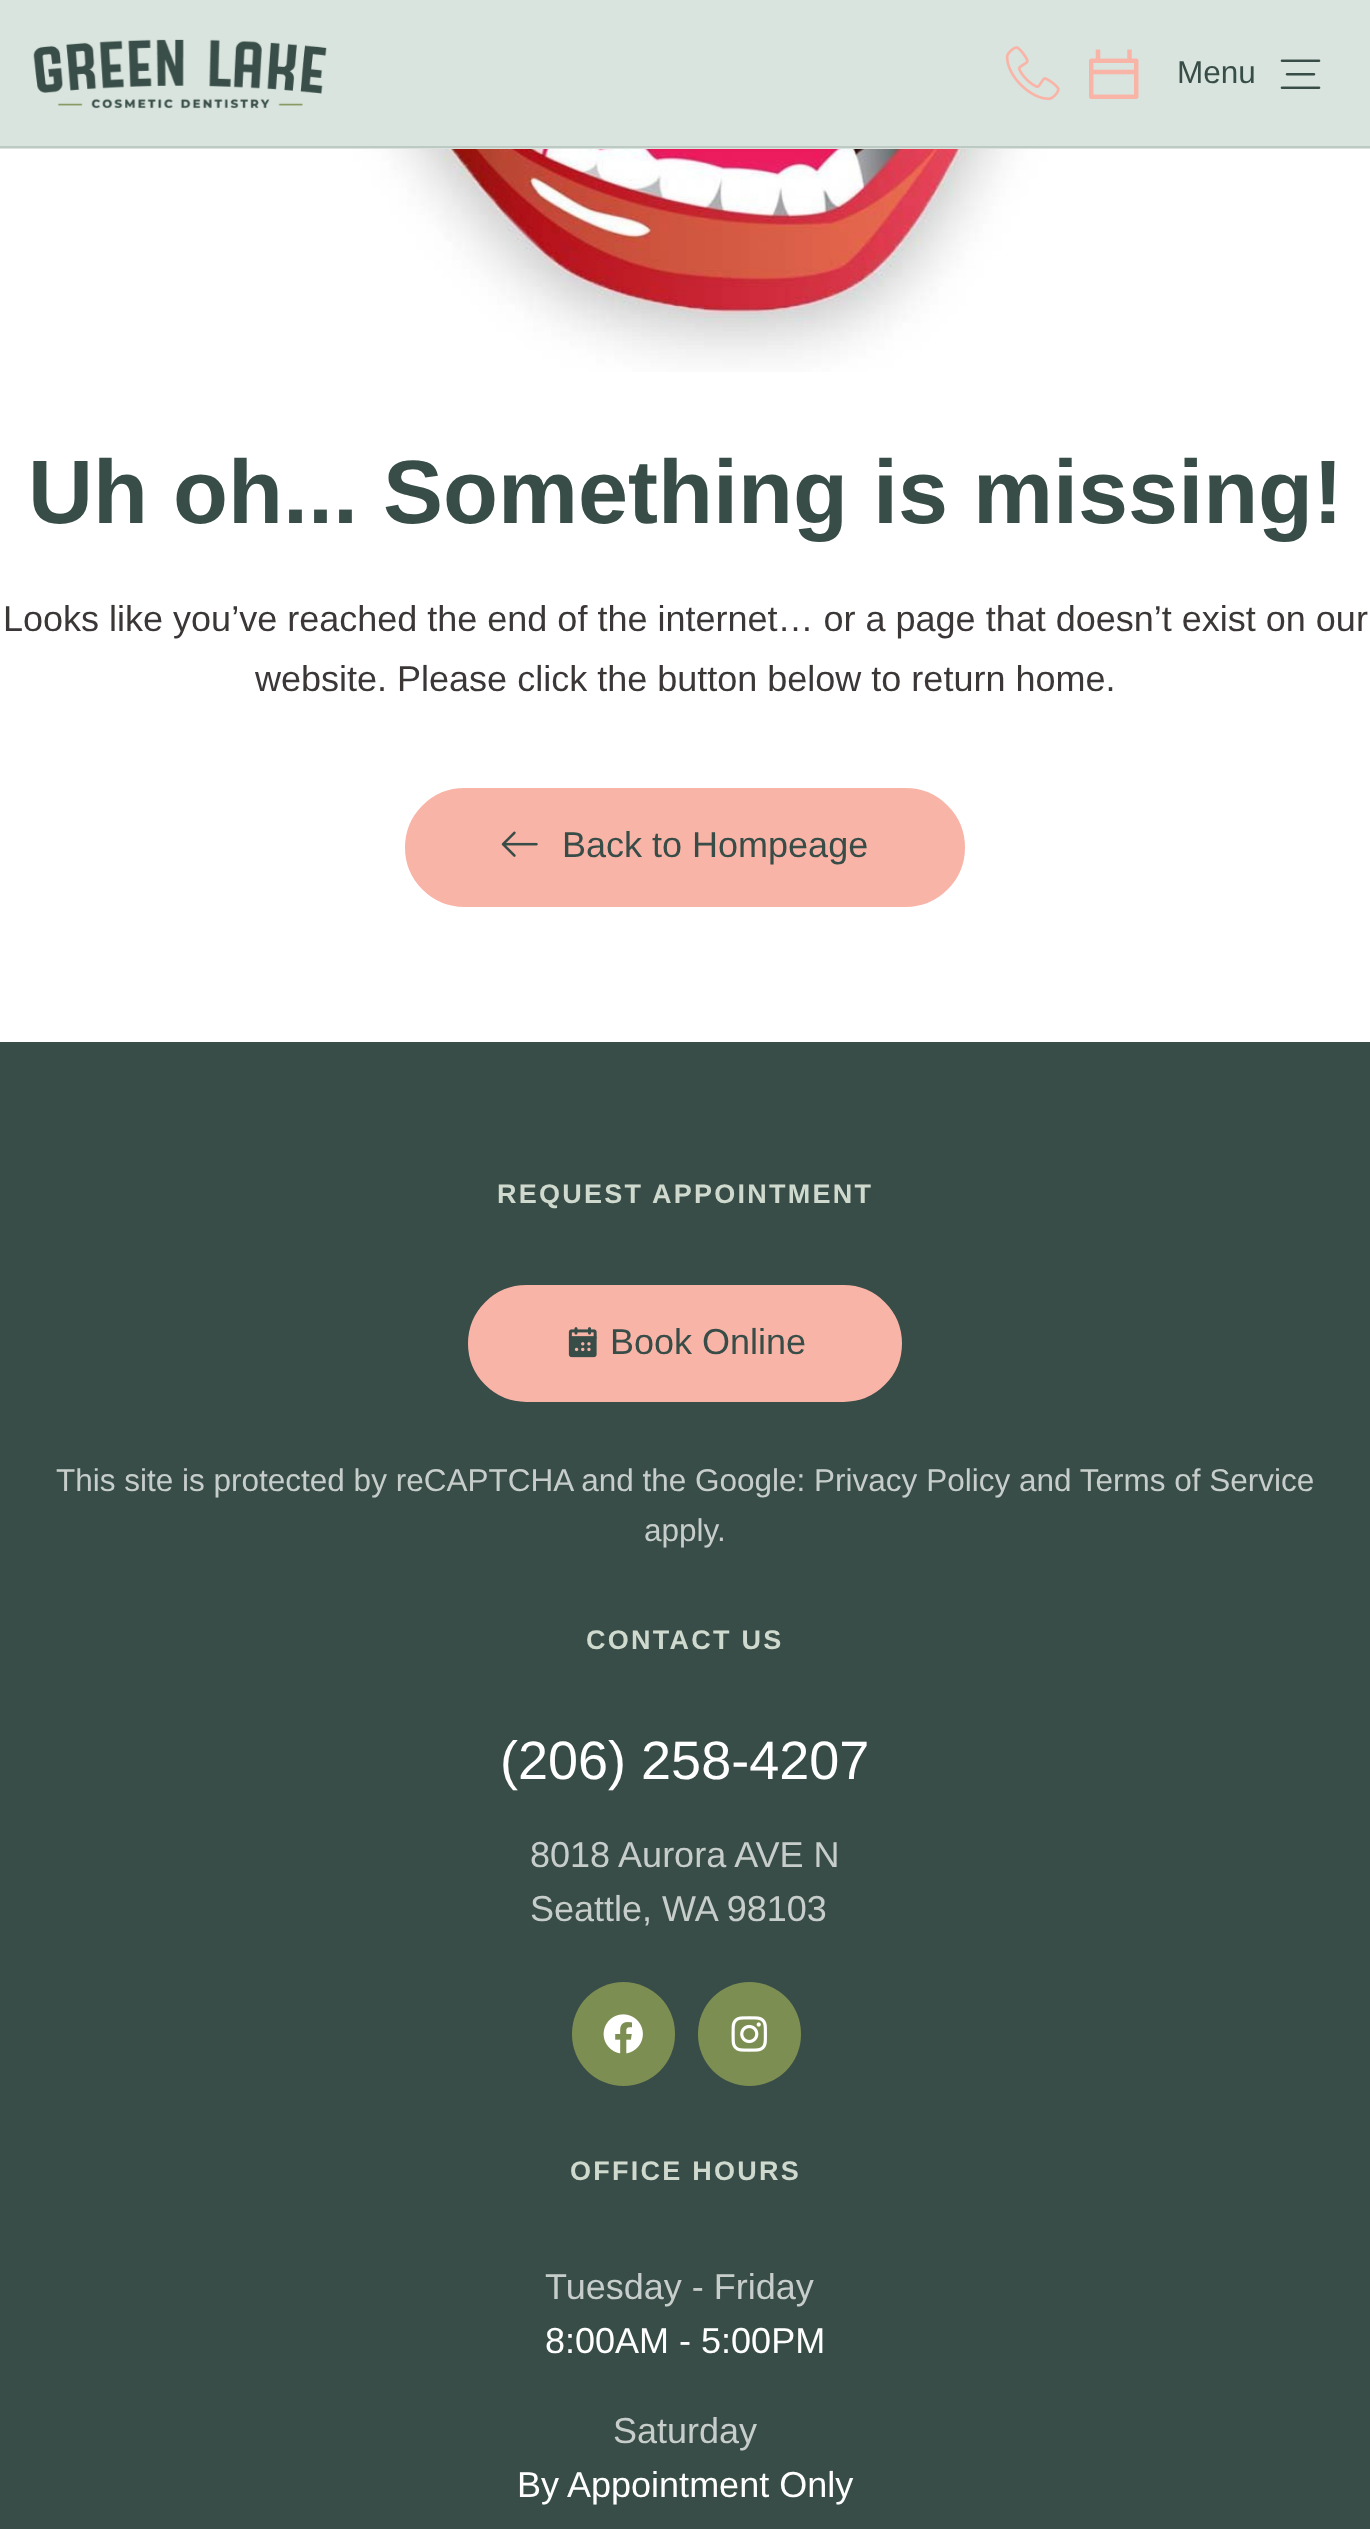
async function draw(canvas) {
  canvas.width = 1370;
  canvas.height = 2529;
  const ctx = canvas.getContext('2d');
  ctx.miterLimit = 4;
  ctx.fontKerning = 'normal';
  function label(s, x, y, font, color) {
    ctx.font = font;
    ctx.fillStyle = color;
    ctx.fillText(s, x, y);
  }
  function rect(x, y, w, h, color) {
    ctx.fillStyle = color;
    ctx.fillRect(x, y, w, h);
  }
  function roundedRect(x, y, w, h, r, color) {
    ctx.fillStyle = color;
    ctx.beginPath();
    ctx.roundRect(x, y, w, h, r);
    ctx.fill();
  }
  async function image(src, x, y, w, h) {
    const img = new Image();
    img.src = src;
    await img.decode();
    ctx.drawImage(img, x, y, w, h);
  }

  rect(0, 0, 1370, 2529, '#fff');
  rect(0, 0, 1370, 149, '#d9e4de');
  rect(0, 146, 1370, 2, '#bdcac4');
  await image('assets/img1.png', 33, 39, 294, 70);
  await image('assets/img2.png', 1005, 46, 55, 55);
  await image('assets/img3.png', 1089, 49, 50, 50);
  label('Menu', 1177, 83, '31.5px Liberation Sans', '#384d47');
  await image('assets/img4.png', 1280, 59, 41, 30);
  await image('assets/img5.png', 319, 149, 739, 223);
  label('Uh oh... Something is missing!', 28, 523, 'bold 90px Liberation Sans', '#384d47');
  label('Looks like you’ve reached the end of the internet… or a page that doesn’t exist on our', 3, 631, '36px Liberation Sans', '#3c3737');
  label('website. Please click the button below to return home.', 255, 691, '36px Liberation Sans', '#3c3737');
  ctx.fillStyle = '#f9b4a8';
  ctx.beginPath();
  ctx.roundRect(406, 789, 558, 117, 58.5);
  ctx.fill();
  ctx.strokeStyle = '#f9b4a8';
  ctx.lineWidth = 2;
  ctx.stroke();
  await image('assets/img6.png', 501, 831, 37, 26);
  label('Back to Hompeage', 562, 857, '36px Liberation Sans', '#384d47');
  rect(0, 1042, 1370, 1487, '#384d47');
  ctx.letterSpacing = '2.25px';
  label('REQUEST APPOINTMENT', 497, 1203, 'bold 27px Liberation Sans', '#cfd9ce');
  ctx.fillStyle = '#f9b4a8';
  ctx.beginPath();
  ctx.roundRect(469, 1286, 432, 115, 57.5);
  ctx.fill();
  ctx.stroke();
  await image('assets/img7.png', 568, 1327, 29, 31);
  ctx.letterSpacing = '0px';
  label('Book Online', 610, 1354, '36px Liberation Sans', '#384d47');
  label('This site is protected by reCAPTCHA and the Google: Privacy Policy and Terms of Service', 56, 1491, '31.5px Liberation Sans', '#c7cdcb');
  label('apply.', 644, 1541, '31.5px Liberation Sans', '#c7cdcb');
  ctx.letterSpacing = '2.25px';
  label('CONTACT US', 586, 1649, 'bold 27px Liberation Sans', '#cfd9ce');
  ctx.letterSpacing = '0px';
  label('(206) 258-4207', 500, 1779, '54px Liberation Sans', '#fff');
  label('8018 Aurora AVE N', 530, 1867, '36px Liberation Sans', '#c7cdcb');
  label('Seattle, WA 98103', 530, 1921, '36px Liberation Sans', '#c7cdcb');
  roundedRect(572, 1982, 103, 104, 51.5, '#7c8e51');
  await image('assets/img8.png', 603, 2014, 40, 40);
  roundedRect(698, 1982, 103, 104, 51.5, '#7c8e51');
  await image('assets/img9.png', 731, 2016, 36, 36);
  ctx.letterSpacing = '2.25px';
  label('OFFICE HOURS', 570, 2180, 'bold 27px Liberation Sans', '#cfd9ce');
  ctx.letterSpacing = '0px';
  label('Tuesday - Friday', 545, 2299, '36px Liberation Sans', '#c7cdcb');
  label('8:00AM - 5:00PM', 545, 2353, '36px Liberation Sans', '#fff');
  label('Saturday', 613, 2443, '36px Liberation Sans', '#c7cdcb');
  label('By Appointment Only', 517, 2497, '36px Liberation Sans', '#fff');
}

draw(document.querySelector('canvas'));
